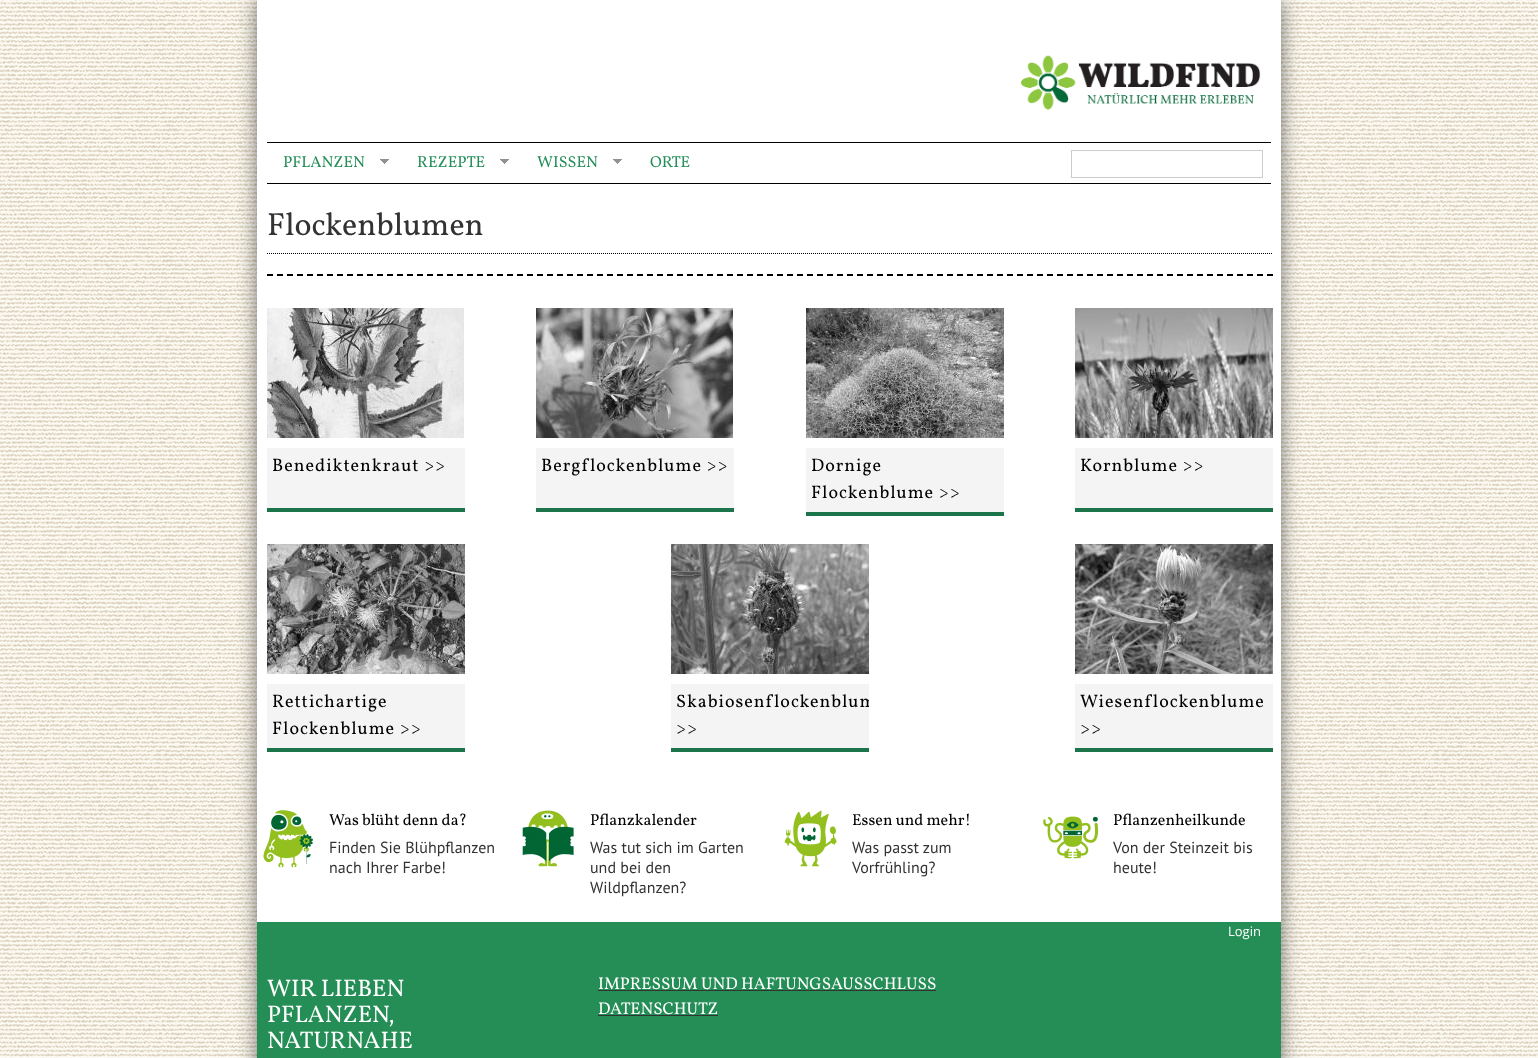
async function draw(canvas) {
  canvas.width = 1538;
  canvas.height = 1058;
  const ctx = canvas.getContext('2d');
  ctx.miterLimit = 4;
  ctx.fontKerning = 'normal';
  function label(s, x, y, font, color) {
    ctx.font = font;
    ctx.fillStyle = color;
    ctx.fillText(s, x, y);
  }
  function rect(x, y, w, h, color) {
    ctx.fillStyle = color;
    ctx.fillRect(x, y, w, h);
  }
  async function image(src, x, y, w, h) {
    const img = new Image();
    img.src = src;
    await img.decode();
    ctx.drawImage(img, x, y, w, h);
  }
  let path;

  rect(0, 0, 1538, 1058, '#fff');
  await image('assets/img1.png', 0, 0, 1538, 1058);
  ctx.fillStyle = '#10101094';
  ctx.filter = 'blur(10px)';
  ctx.beginPath();
  ctx.rect(257, 0, 1024, 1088);
  ctx.fill();
  ctx.filter = 'none';
  rect(257, 0, 1024, 922, '#fff');
  rect(267, 142, 1004, 1, '#000');
  rect(267, 183, 1004, 1, '#000');
  label('PFLANZEN', 283, 167, '16px Vollkorn', '#258e57');
  await image('assets/img2.png', 380, 159, 9, 5);
  label('REZEPTE', 417, 167, '16px Vollkorn', '#258e57');
  await image('assets/img2.png', 500, 159, 9, 5);
  label('WISSEN', 537, 167, '16px Vollkorn', '#258e57');
  await image('assets/img2.png', 613, 159, 9, 5);
  label('ORTE', 650, 167, '16px Vollkorn', '#258e57');
  await image('assets/img3.png', 1021, 55, 240, 55);
  ctx.strokeStyle = '#ccc';
  ctx.strokeRect(1071.5, 150.5, 191, 27);
  path = new Path2D('M267 253.5H1273');
  ctx.strokeStyle = '#000';
  ctx.setLineDash([1, 1]);
  ctx.stroke(path);
  label('Flockenblumen', 267, 235, '32px Vollkorn', '#333');
  path = new Path2D('M267 275H1273');
  ctx.lineWidth = 2;
  ctx.setLineDash([6, 4]);
  ctx.stroke(path);
  await image('assets/img4.png', 267, 308, 197, 130);
  rect(267, 448, 198, 60, '#f4f4f4');
  rect(267, 508, 198, 4, '#1b744a');
  ctx.letterSpacing = '1px';
  label('Benediktenkraut >>', 272, 471, '18px Vollkorn', '#000');
  await image('assets/img5.png', 536, 308, 197, 130);
  rect(536, 448, 198, 60, '#f4f4f4');
  rect(536, 508, 198, 4, '#1b744a');
  label('Bergflockenblume >>', 541, 471, '18px Vollkorn', '#000');
  await image('assets/img6.png', 806, 308, 198, 130);
  rect(806, 448, 198, 64, '#f4f4f4');
  rect(806, 512, 198, 4, '#1b744a');
  label('Dornige', 811, 471, '18px Vollkorn', '#000');
  label('Flockenblume >>', 811, 498, '18px Vollkorn', '#000');
  await image('assets/img7.png', 1075, 308, 198, 130);
  rect(1075, 448, 198, 60, '#f4f4f4');
  rect(1075, 508, 198, 4, '#1b744a');
  label('Kornblume >>', 1080, 471, '18px Vollkorn', '#000');
  await image('assets/img8.png', 267, 544, 198, 130);
  rect(267, 684, 198, 64, '#f4f4f4');
  rect(267, 748, 198, 4, '#1b744a');
  label('Rettichartige', 272, 707, '18px Vollkorn', '#000');
  label('Flockenblume >>', 272, 734, '18px Vollkorn', '#000');
  await image('assets/img9.png', 671, 544, 198, 130);
  rect(671, 684, 198, 64, '#f4f4f4');
  rect(671, 748, 198, 4, '#1b744a');
  ctx.save();
  ctx.beginPath();
  ctx.rect(671, 540, 198, 220);
  ctx.clip();
  label('Skabiosenflockenblum', 676, 707, '18px Vollkorn', '#000');
  ctx.restore();
  label('>>', 676, 734, '18px Vollkorn', '#000');
  await image('assets/img10.png', 1075, 544, 198, 130);
  rect(1075, 684, 198, 64, '#f4f4f4');
  rect(1075, 748, 198, 4, '#1b744a');
  label('Wiesenflockenblume', 1080, 707, '18px Vollkorn', '#000');
  label('>>', 1080, 734, '18px Vollkorn', '#000');
  await image('assets/img11.png', 263, 810, 50, 58);
  ctx.letterSpacing = '0px';
  label('Was blüht denn da?', 329, 825, '16px Vollkorn', '#000');
  label('Finden Sie Blühpflanzen', 329, 853, '16px PT Sans', '#333');
  label('nach Ihrer Farbe!', 329, 873, '16px PT Sans', '#333');
  await image('assets/img12.png', 522, 810, 52, 57);
  label('Pflanzkalender', 590, 825, '16px Vollkorn', '#000');
  label('Was tut sich im Garten', 590, 853, '16px PT Sans', '#333');
  label('und bei den', 590, 873, '16px PT Sans', '#333');
  label('Wildpflanzen?', 590, 893, '16px PT Sans', '#333');
  await image('assets/img13.png', 784, 810, 53, 57);
  label('Essen und mehr!', 852, 825, '16px Vollkorn', '#000');
  label('Was passt zum', 852, 853, '16px PT Sans', '#333');
  label('Vorfrühling?', 852, 873, '16px PT Sans', '#333');
  await image('assets/img14.png', 1043, 816, 56, 43);
  label('Pflanzenheilkunde', 1113, 825, '16px Vollkorn', '#000');
  label('Von der Steinzeit bis', 1113, 853, '16px PT Sans', '#333');
  label('heute!', 1113, 873, '16px PT Sans', '#333');
  rect(257, 922, 1024, 136, '#258e57');
  label('Login', 1228, 936, '13px Open Sans', '#fff');
  label('WIR LIEBEN', 267, 996, '24px Vollkorn', '#fff');
  label('PFLANZEN,', 267, 1022, '24px Vollkorn', '#fff');
  label('NATURNAHE', 267, 1048, '24px Vollkorn', '#fff');
  label('IMPRESSUM UND HAFTUNGSAUSSCHLUSS', 598, 989, '17px Vollkorn', '#fff');
  rect(598, 990, 338, 1, '#333');
  label('DATENSCHUTZ', 598, 1014, '17px Vollkorn', '#fff');
  rect(598, 1015, 120, 1, '#333');
}

draw(document.querySelector('canvas'));
